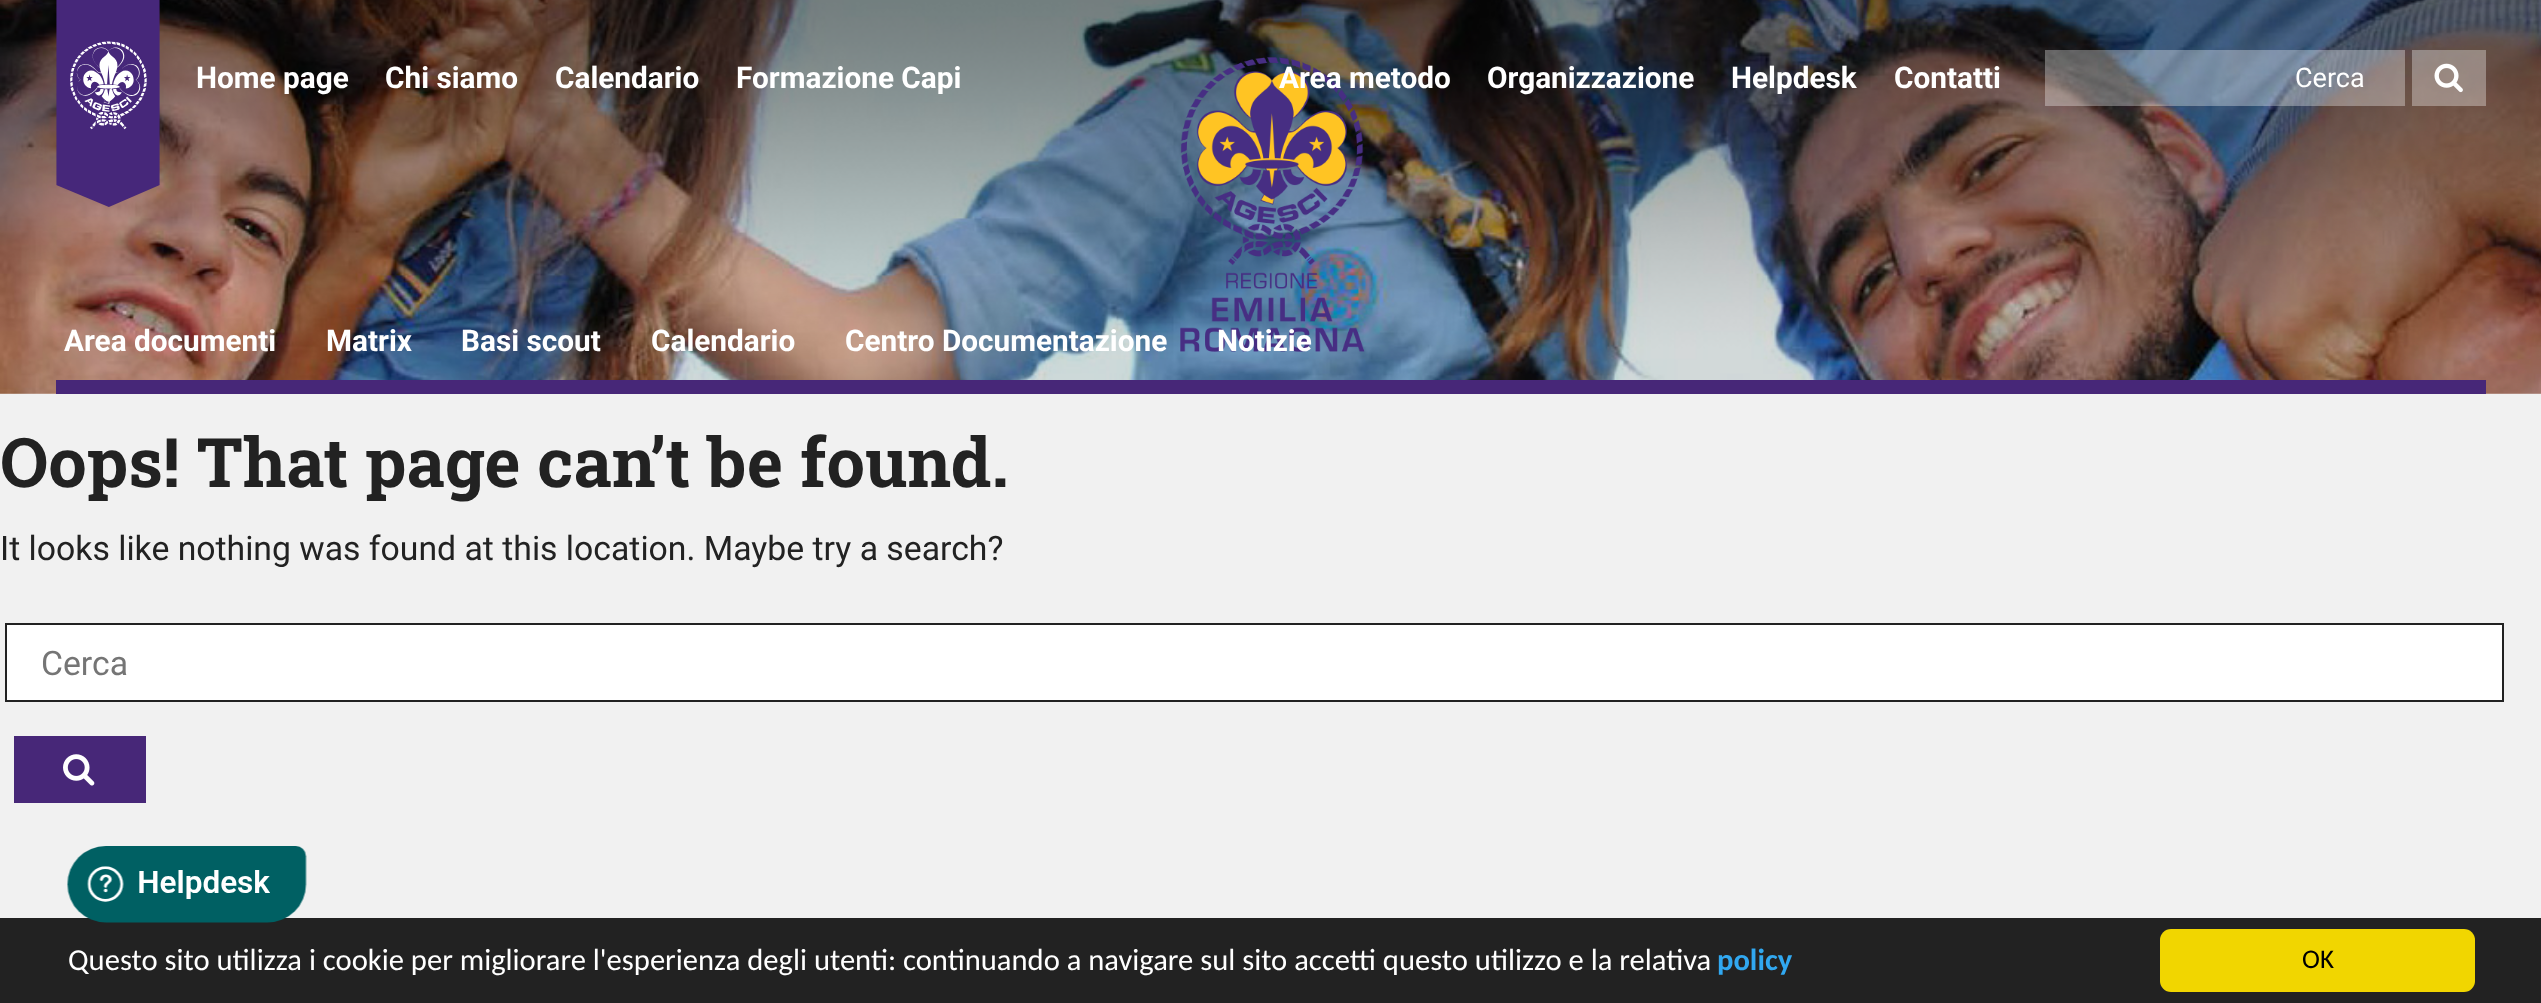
async function draw(canvas) {
  canvas.width = 2541;
  canvas.height = 1003;
  const ctx = canvas.getContext('2d');
  ctx.miterLimit = 4;
  ctx.fontKerning = 'normal';
  function label(s, x, y, font, color) {
    ctx.font = font;
    ctx.fillStyle = color;
    ctx.fillText(s, x, y);
  }
  function rect(x, y, w, h, color) {
    ctx.fillStyle = color;
    ctx.fillRect(x, y, w, h);
  }
  function roundedRect(x, y, w, h, r, color) {
    ctx.fillStyle = color;
    ctx.beginPath();
    ctx.roundRect(x, y, w, h, r);
    ctx.fill();
  }
  async function image(src, x, y, w, h) {
    const img = new Image();
    img.src = src;
    await img.decode();
    ctx.drawImage(img, x, y, w, h);
  }

  rect(0, 0, 2541, 1003, '#f1f1f1');
  await image('assets/img1.png', 0, 0, 2541, 394);
  await image('assets/img2.png', 56, 0, 104, 207);
  label('Home page', 196, 88, 'bold 29.75px Roboto', '#fff');
  label('Chi siamo', 385, 88, 'bold 29.75px Roboto', '#fff');
  label('Calendario', 555, 88, 'bold 29.75px Roboto', '#fff');
  label('Formazione Capi', 736, 88, 'bold 29.75px Roboto', '#fff');
  await image('assets/img3.png', 1180, 57, 185, 295);
  label('Area metodo', 1279, 88, 'bold 29.75px Roboto', '#fff');
  label('Organizzazione', 1487, 88, 'bold 29.75px Roboto', '#fff');
  label('Helpdesk', 1731, 88, 'bold 29.75px Roboto', '#fff');
  label('Contatti', 1894, 88, 'bold 29.75px Roboto', '#fff');
  rect(2045, 50, 360, 56, '#ffffff54');
  label('Cerca', 2295, 87, '27px Roboto', '#fff');
  rect(2412, 50, 74, 56, '#ffffff54');
  await image('assets/img4.png', 2434, 63, 29, 30);
  rect(56, 380, 2430, 14, '#472778');
  label('Area documenti', 64, 351, 'bold 29.75px Roboto', '#fff');
  label('Matrix', 326, 351, 'bold 29.75px Roboto', '#fff');
  label('Basi scout', 461, 351, 'bold 29.75px Roboto', '#fff');
  label('Calendario', 651, 351, 'bold 29.75px Roboto', '#fff');
  label('Centro Documentazione', 845, 351, 'bold 29.75px Roboto', '#fff');
  label('Notizie', 1217, 351, 'bold 29.75px Roboto', '#fff');
  label('Oops! That page can’t be found.', 0, 487, 'bold 68.4px Roboto Slab', '#222');
  label('It looks like nothing was found at this location. Maybe try a search?', 0, 560, '33.75px Roboto', '#222');
  ctx.fillStyle = '#fff';
  ctx.beginPath();
  ctx.rect(6, 624, 2497, 77);
  ctx.fill();
  ctx.strokeStyle = '#222';
  ctx.lineWidth = 2;
  ctx.stroke();
  label('Cerca', 41, 675, '33.75px Roboto', '#757575');
  rect(14, 736, 132, 67, '#472778');
  await image('assets/img5.png', 63, 754, 32, 32);
  rect(0, 918, 2541, 85, '#222');
  await image('assets/img6.png', 67, 846, 240, 77);
  label('Questo sito utilizza i cookie per migliorare l\'esperienza degli utenti: continuando a navigare sul sito accetti questo utilizzo e la relativa', 68, 970, '30.6px Carlito', '#fff');
  label('policy', 1717, 970, 'bold 30.6px Carlito', '#31a8f0');
  roundedRect(2160, 929, 315, 63, 11, '#f1d600');
  label('OK', 2302, 968, '27px Carlito', '#000');
}

draw(document.querySelector('canvas'));
